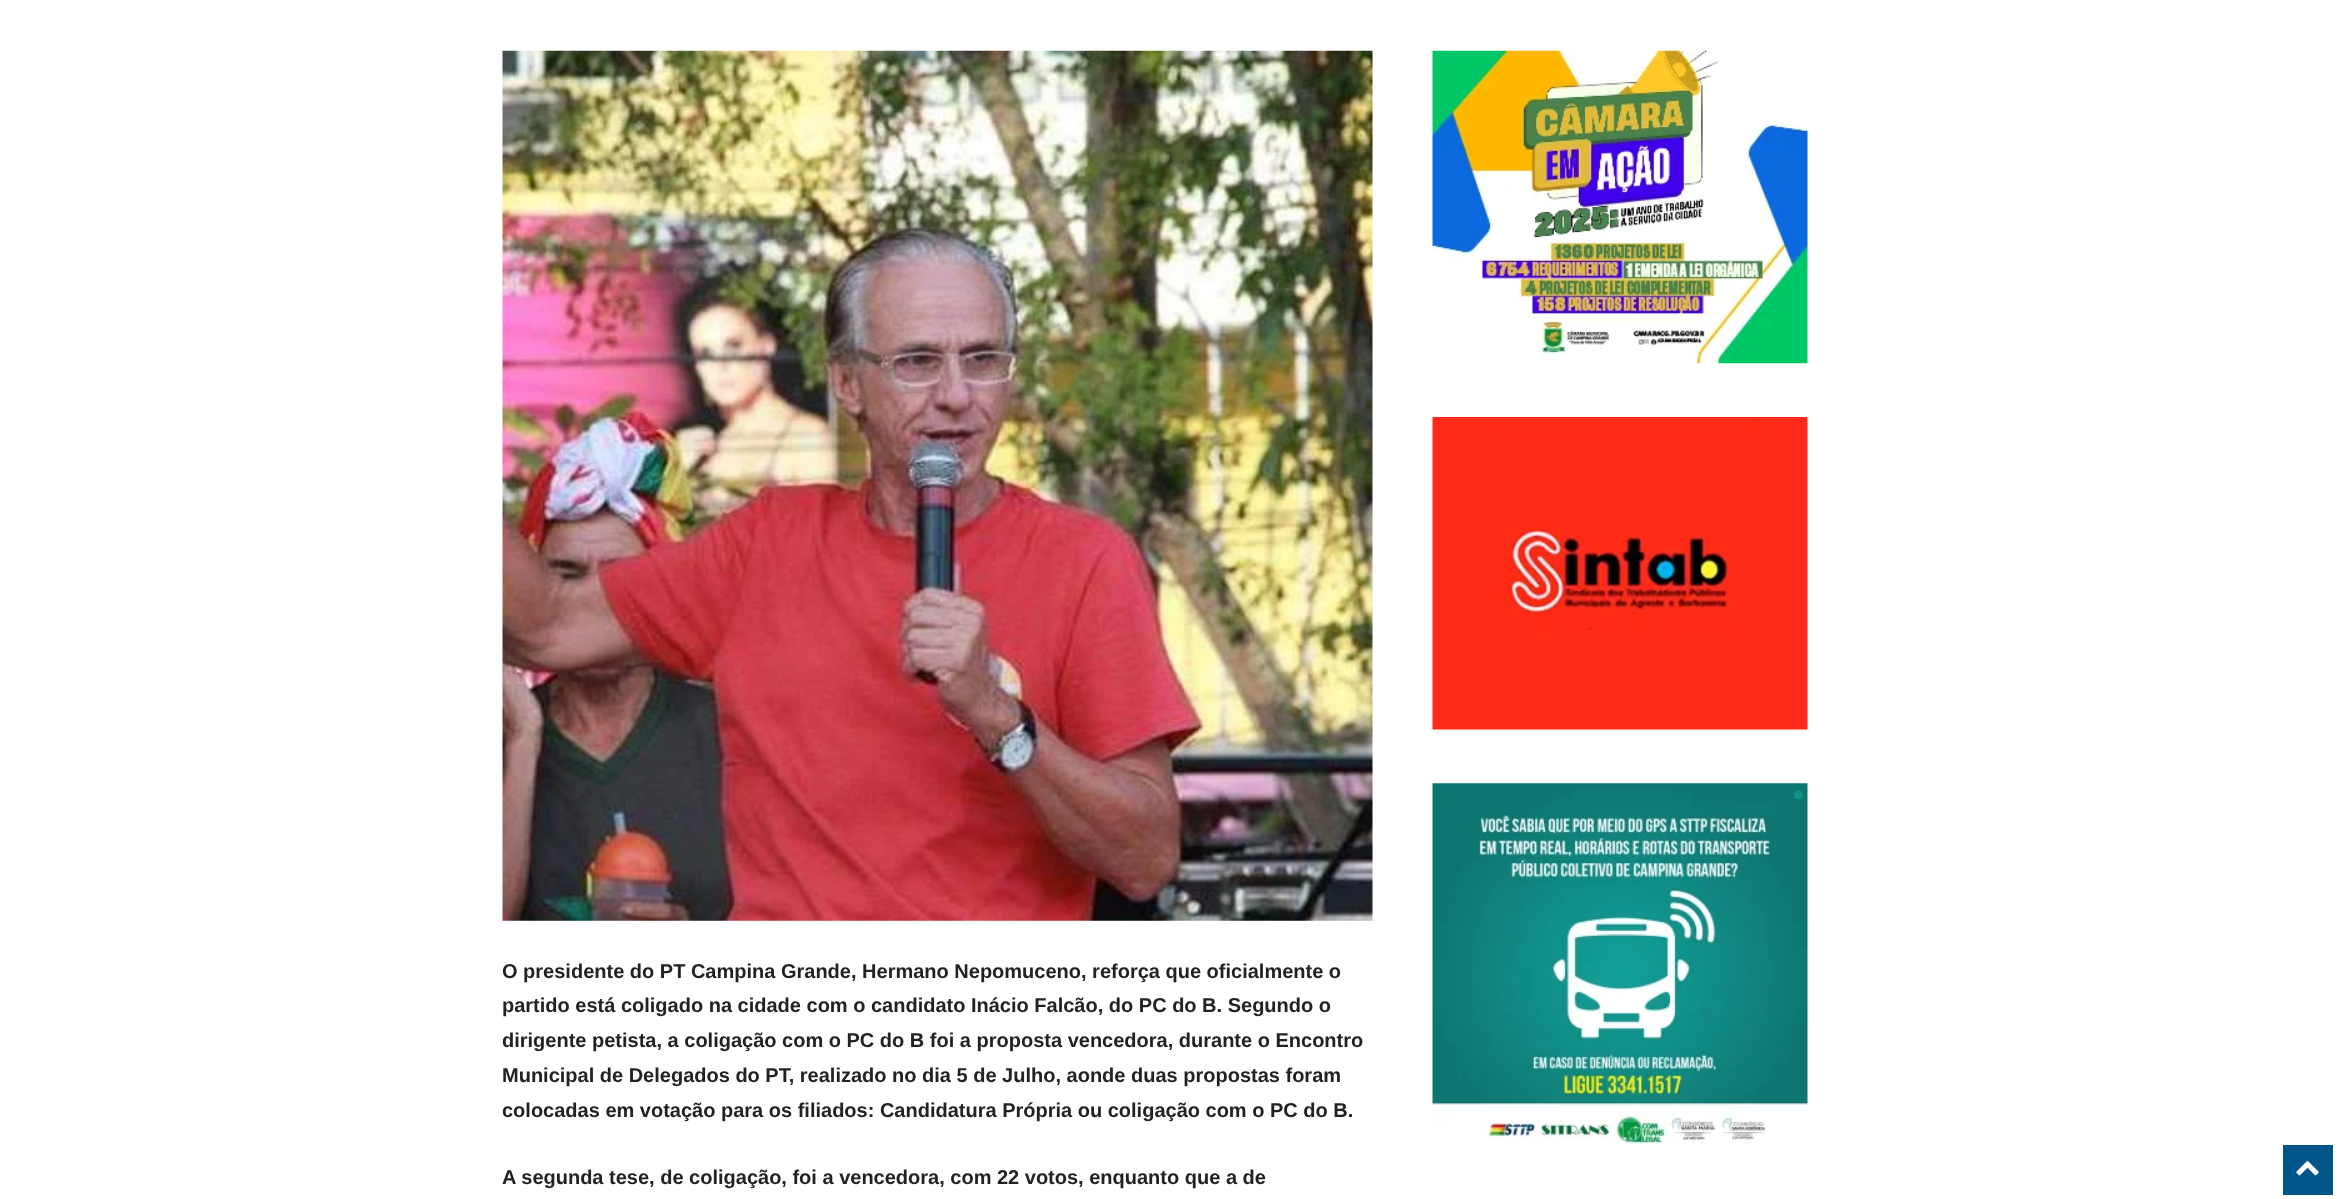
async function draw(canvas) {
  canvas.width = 2338;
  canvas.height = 1199;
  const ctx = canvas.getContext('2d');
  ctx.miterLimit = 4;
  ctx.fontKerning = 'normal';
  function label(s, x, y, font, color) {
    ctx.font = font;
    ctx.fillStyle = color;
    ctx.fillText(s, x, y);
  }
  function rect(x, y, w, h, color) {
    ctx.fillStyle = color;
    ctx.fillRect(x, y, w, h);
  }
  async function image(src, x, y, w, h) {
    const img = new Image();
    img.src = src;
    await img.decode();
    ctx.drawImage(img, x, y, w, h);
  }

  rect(0, 0, 2338, 1199, '#fff');
  await image('assets/img1.png', 502, 50, 871, 871);
  label('O presidente do PT Campina Grande, Hermano Nepomuceno, reforça que oficialmente o', 502, 978, 'bold 20px Liberation Sans', '#222');
  label('partido está coligado na cidade com o candidato Inácio Falcão, do PC do B. Segundo o', 502, 1012, 'bold 20px Liberation Sans', '#222');
  label('dirigente petista, a coligação com o PC do B foi a proposta vencedora, durante o Encontro', 502, 1047, 'bold 20px Liberation Sans', '#222');
  label('Municipal de Delegados do PT, realizado no dia 5 de Julho, aonde duas propostas foram', 502, 1082, 'bold 20px Liberation Sans', '#222');
  label('colocadas em votação para os filiados: Candidatura Própria ou coligação com o PC do B.', 502, 1117, 'bold 20px Liberation Sans', '#222');
  label('A segunda tese, de coligação, foi a vencedora, com 22 votos, enquanto que a de', 502, 1184, 'bold 20px Liberation Sans', '#222');
  await image('assets/img2.png', 1432, 50, 376, 314);
  await image('assets/img3.png', 1432, 417, 376, 313);
  await image('assets/img4.png', 1432, 783, 376, 362);
  rect(2283, 1145, 50, 50, '#005689');
  await image('assets/img5.png', 2296, 1161, 23, 15);
}

draw(document.querySelector('canvas'));
